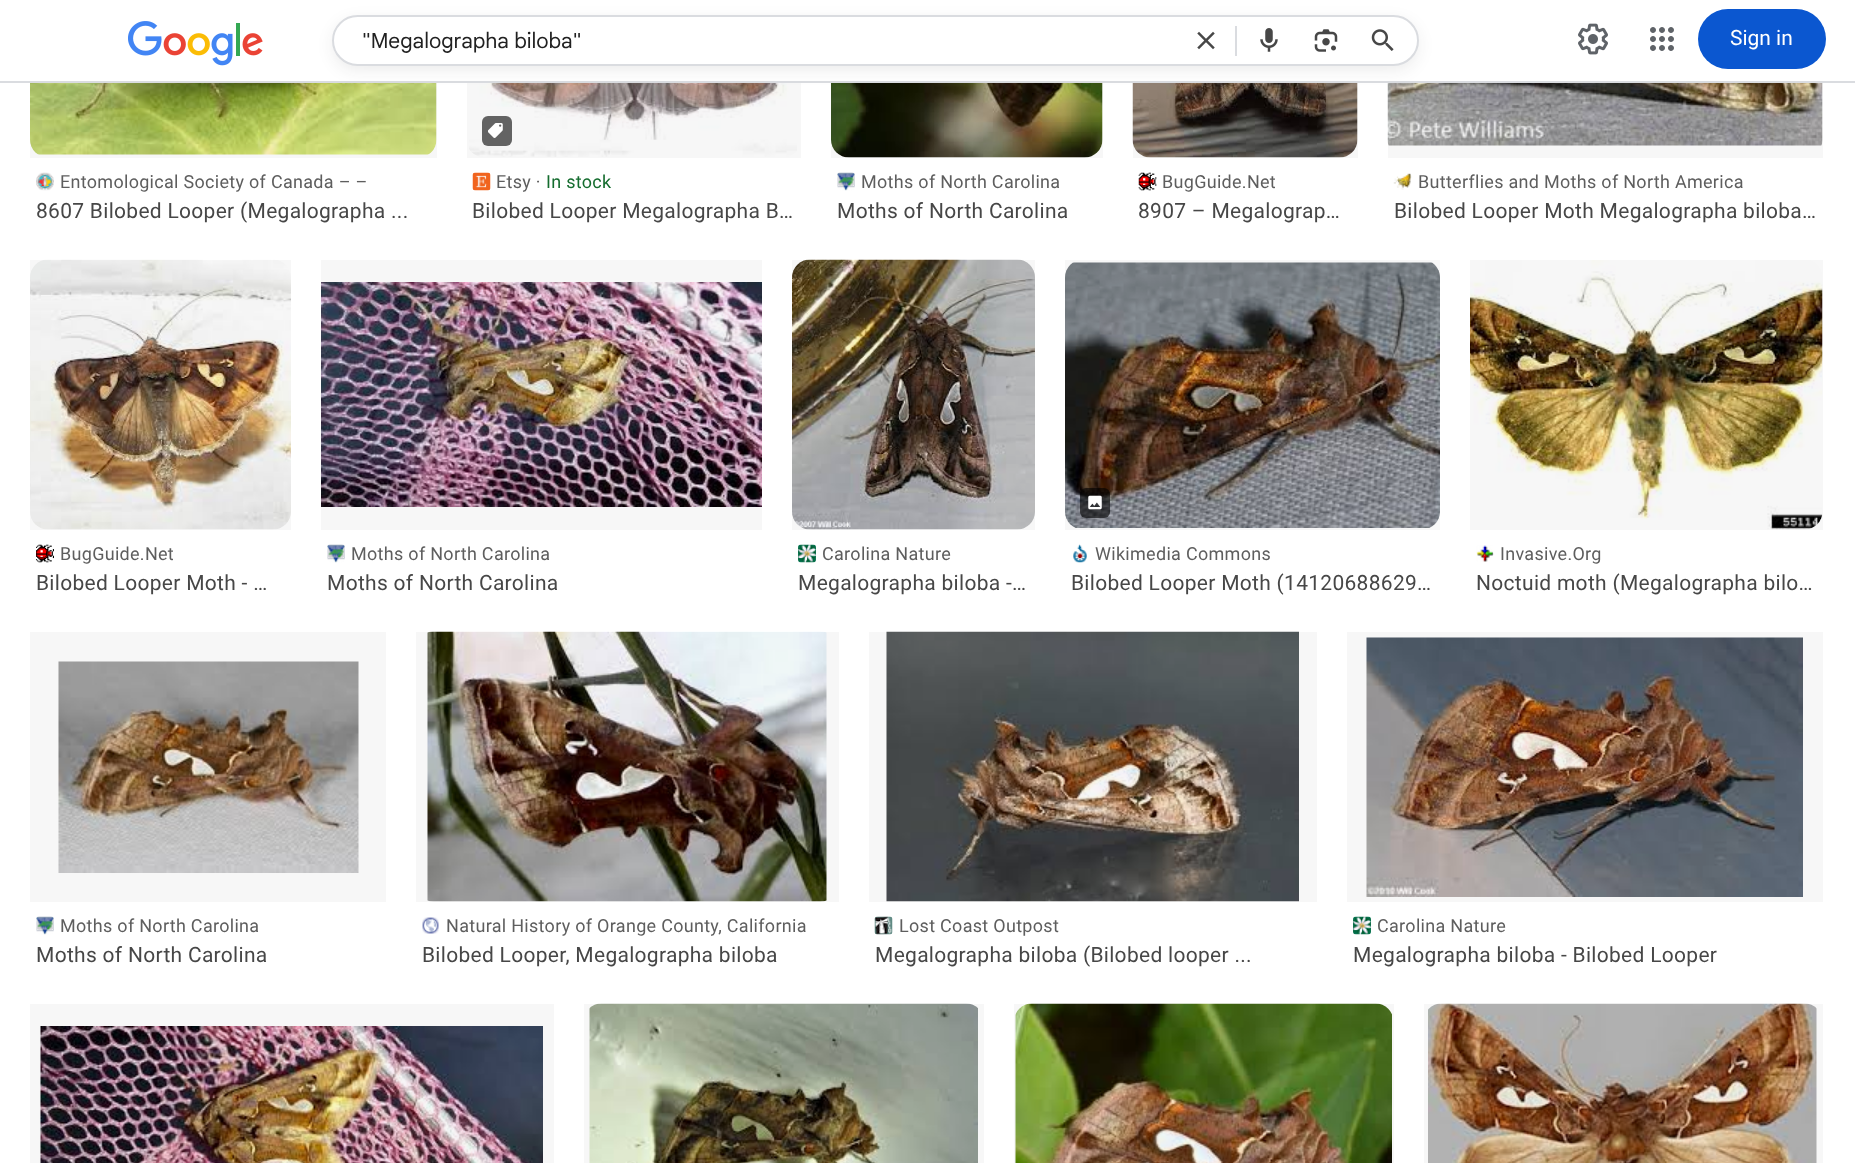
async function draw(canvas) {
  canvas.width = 1855;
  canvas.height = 1163;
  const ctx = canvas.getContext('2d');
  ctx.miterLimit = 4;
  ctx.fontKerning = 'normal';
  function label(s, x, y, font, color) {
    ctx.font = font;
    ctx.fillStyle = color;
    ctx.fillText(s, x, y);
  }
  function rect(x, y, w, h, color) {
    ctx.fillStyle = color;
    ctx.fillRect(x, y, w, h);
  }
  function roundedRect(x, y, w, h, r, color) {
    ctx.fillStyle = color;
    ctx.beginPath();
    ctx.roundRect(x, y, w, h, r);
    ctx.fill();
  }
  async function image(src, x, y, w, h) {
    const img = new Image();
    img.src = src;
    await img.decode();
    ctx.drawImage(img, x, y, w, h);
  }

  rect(0, 0, 1855, 1163, '#fff');
  rect(0, 81, 1855, 2, '#dadce0');
  await image('assets/img1.png', 128, 21, 135, 45);
  await image('assets/img8.png', 30, 83, 407, 72);
  rect(30, 83, 407, 75, '#00000008');
  await image('assets/img10.png', 469, 83, 328, 74);
  rect(467, 83, 334, 75, '#00000008');
  await image('assets/img13.png', 831, 83, 272, 75);
  rect(831, 83, 272, 75, '#00000008');
  await image('assets/img15.png', 1132, 83, 226, 75);
  rect(1133, 83, 225, 75, '#00000008');
  await image('assets/img17.png', 1387, 83, 436, 63);
  rect(1388, 83, 435, 75, '#00000008');
  ctx.fillStyle = '#1f1f1f14';
  ctx.filter = 'blur(7.5px)';
  ctx.beginPath();
  ctx.roundRect(332, 20, 1087, 51, 25.5);
  ctx.fill();
  ctx.filter = 'none';
  ctx.fillStyle = '#fff';
  ctx.beginPath();
  ctx.roundRect(333, 16, 1085, 49, 24.5);
  ctx.fill();
  ctx.strokeStyle = '#dadce0';
  ctx.lineWidth = 2;
  ctx.stroke();
  label('"Megalographa biloba"', 362, 48, '21px Google Sans', '#212121');
  await image('assets/img2.png', 1197, 31, 18, 19);
  rect(1235, 26, 2, 30, '#dadce0');
  await image('assets/img3.png', 1260, 28, 18, 24);
  await image('assets/img4.png', 1314, 29, 24, 23);
  await image('assets/img5.png', 1371, 29, 23, 22);
  await image('assets/img6.png', 1578, 23, 30, 32);
  await image('assets/img7.png', 1650, 27, 24, 24);
  roundedRect(1698, 9, 128, 60, 30, '#0b57d0');
  label('Sign in', 1730, 45, '21px Roboto', '#fff');
  await image('assets/img9.png', 36, 172, 18, 19);
  ctx.letterSpacing = '0.3px';
  label('Entomological Society of Canada – –', 60, 188, '18px Roboto', '#5e5e5e');
  label('8607 Bilobed Looper (Megalographa ...', 36, 218, '21px Roboto', '#474747');
  roundedRect(482, 116, 30, 30, 6, '#636363');
  await image('assets/img11.png', 488, 123, 15, 15);
  await image('assets/img12.png', 472, 172, 19, 19);
  label('Etsy ·', 496, 188, '18px Roboto', '#5e5e5e');
  label('In stock', 546, 188, '18px Roboto', '#146c2e');
  label('Bilobed Looper Megalographa B…', 472, 218, '21px Roboto', '#474747');
  await image('assets/img14.png', 837, 172, 18, 19);
  label('Moths of North Carolina', 861, 188, '18px Roboto', '#5e5e5e');
  label('Moths of North Carolina', 837, 218, '21px Roboto', '#474747');
  await image('assets/img16.png', 1138, 172, 19, 19);
  label('BugGuide.Net', 1162, 188, '18px Roboto', '#5e5e5e');
  label('8907 – Megalograp…', 1138, 218, '21px Roboto', '#474747');
  await image('assets/img18.png', 1393, 173, 19, 17);
  label('Butterflies and Moths of North America', 1418, 188, '18px Roboto', '#5e5e5e');
  label('Bilobed Looper Moth Megalographa biloba…', 1394, 218, '21px Roboto', '#474747');
  await image('assets/img19.png', 30, 259, 261, 271);
  rect(30, 260, 261, 270, '#00000008');
  await image('assets/img20.png', 36, 544, 18, 19);
  label('BugGuide.Net', 60, 560, '18px Roboto', '#5e5e5e');
  label('Bilobed Looper Moth - …', 36, 590, '21px Roboto', '#474747');
  await image('assets/img21.png', 321, 282, 441, 225);
  rect(321, 260, 441, 270, '#00000008');
  await image('assets/img22.png', 327, 544, 18, 19);
  label('Moths of North Carolina', 351, 560, '18px Roboto', '#5e5e5e');
  label('Moths of North Carolina', 327, 590, '21px Roboto', '#474747');
  await image('assets/img23.png', 792, 259, 243, 271);
  rect(792, 260, 243, 270, '#00000008');
  await image('assets/img24.png', 798, 544, 18, 19);
  label('Carolina Nature', 822, 560, '18px Roboto', '#5e5e5e');
  label('Megalographa biloba -…', 798, 590, '21px Roboto', '#474747');
  await image('assets/img25.png', 1065, 262, 375, 266);
  rect(1065, 260, 375, 270, '#00000008');
  roundedRect(1080, 488, 30, 30, 6, '#00000099');
  await image('assets/img26.png', 1088, 495, 14, 15);
  await image('assets/img27.png', 1073, 544, 14, 19);
  label('Wikimedia Commons', 1095, 560, '18px Roboto', '#5e5e5e');
  label('Bilobed Looper Moth (14120688629…', 1071, 590, '21px Roboto', '#474747');
  await image('assets/img28.png', 1470, 260, 353, 270);
  rect(1470, 260, 353, 270, '#00000008');
  await image('assets/img29.png', 1476, 545, 18, 17);
  label('Invasive.Org', 1500, 560, '18px Roboto', '#5e5e5e');
  label('Noctuid moth (Megalographa bilo…', 1476, 590, '21px Roboto', '#474747');
  await image('assets/img30.png', 58, 661, 301, 212);
  rect(30, 632, 356, 270, '#00000008');
  await image('assets/img31.png', 36, 916, 18, 19);
  label('Moths of North Carolina', 60, 932, '18px Roboto', '#5e5e5e');
  label('Moths of North Carolina', 36, 962, '21px Roboto', '#474747');
  await image('assets/img32.png', 427, 631, 400, 271);
  rect(416, 632, 423, 270, '#00000008');
  await image('assets/img33.png', 422, 917, 17, 17);
  label('Natural History of Orange County, California', 446, 932, '18px Roboto', '#5e5e5e');
  label('Bilobed Looper, Megalographa biloba', 422, 962, '21px Roboto', '#474747');
  await image('assets/img34.png', 886, 631, 413, 271);
  rect(869, 632, 448, 270, '#00000008');
  await image('assets/img35.png', 874, 916, 19, 19);
  label('Lost Coast Outpost', 899, 932, '18px Roboto', '#5e5e5e');
  label('Megalographa biloba (Bilobed looper ...', 875, 962, '21px Roboto', '#474747');
  await image('assets/img36.png', 1366, 637, 437, 260);
  rect(1347, 632, 476, 270, '#00000008');
  await image('assets/img37.png', 1353, 916, 18, 19);
  label('Carolina Nature', 1377, 932, '18px Roboto', '#5e5e5e');
  label('Megalographa biloba - Bilobed Looper', 1353, 962, '21px Roboto', '#474747');
  await image('assets/img38.png', 40, 1026, 503, 137);
  rect(30, 1004, 524, 159, '#00000008');
  await image('assets/img39.png', 589, 1003, 389, 160);
  rect(584, 1004, 400, 159, '#00000008');
  await image('assets/img40.png', 1015, 1003, 377, 160);
  rect(1014, 1004, 380, 159, '#00000008');
  await image('assets/img41.png', 1428, 1003, 389, 160);
  rect(1424, 1004, 399, 159, '#00000008');
}

draw(document.querySelector('canvas'));
